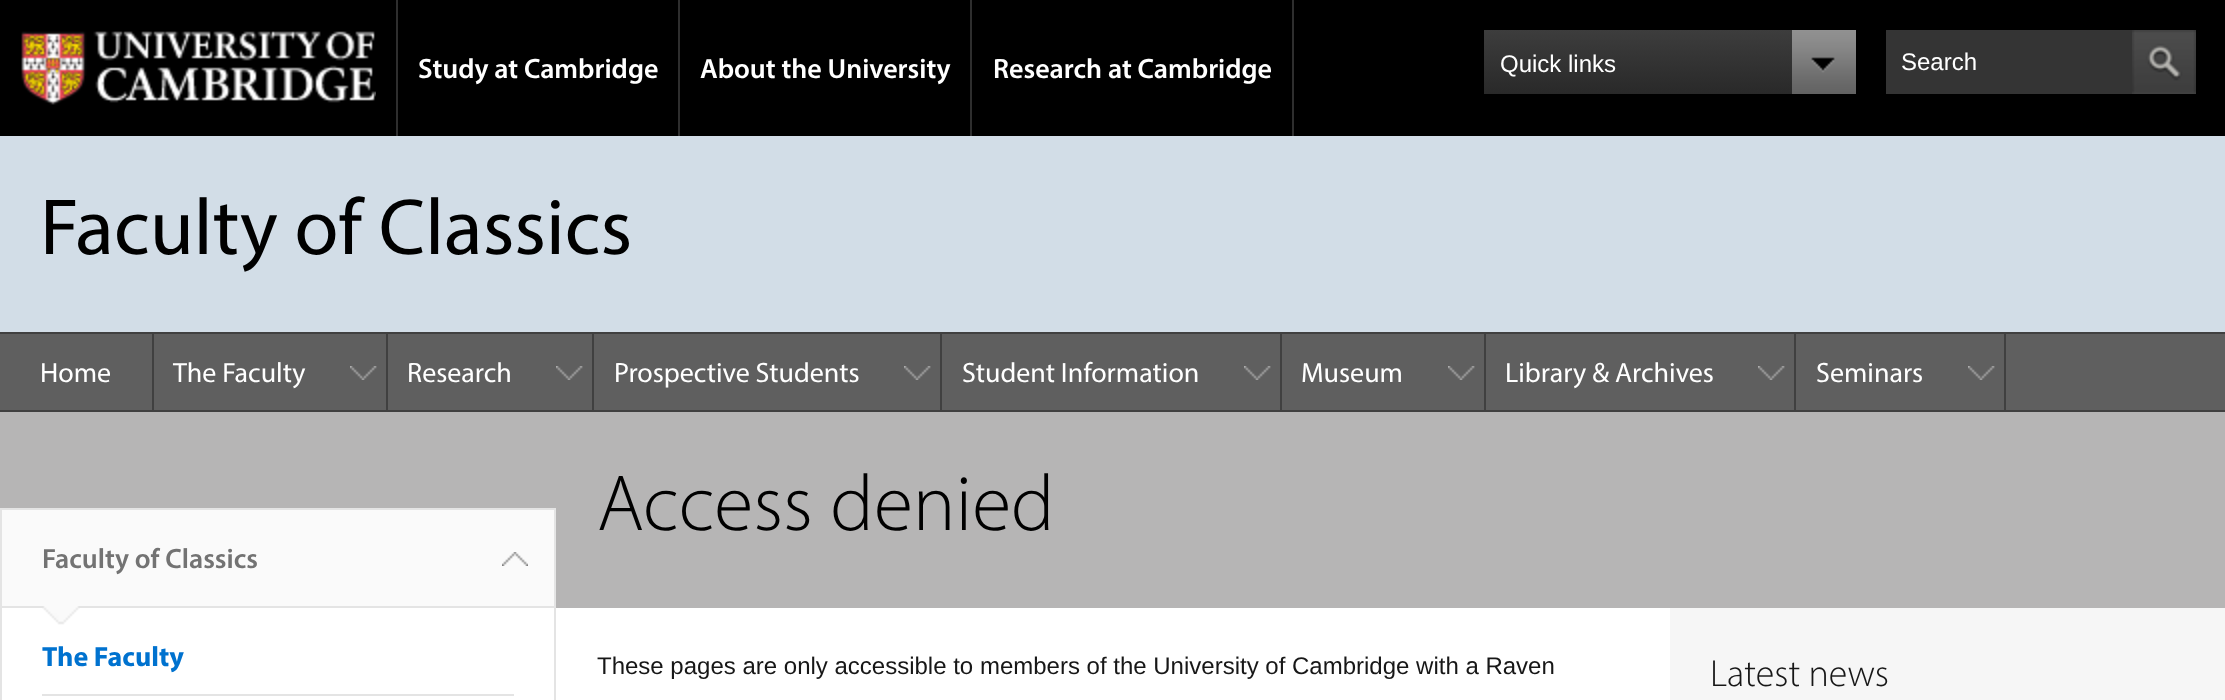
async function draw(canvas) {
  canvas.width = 2225;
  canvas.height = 700;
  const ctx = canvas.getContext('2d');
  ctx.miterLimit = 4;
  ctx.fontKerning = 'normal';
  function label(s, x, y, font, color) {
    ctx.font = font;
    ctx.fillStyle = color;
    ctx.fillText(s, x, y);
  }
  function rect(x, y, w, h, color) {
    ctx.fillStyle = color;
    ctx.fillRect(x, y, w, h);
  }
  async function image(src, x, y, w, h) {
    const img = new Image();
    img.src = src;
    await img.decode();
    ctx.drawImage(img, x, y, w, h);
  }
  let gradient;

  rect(0, 0, 2225, 700, '#000');
  await image('assets/img1.png', 21, 31, 355, 74);
  rect(396, 0, 2, 136, '#2e2e2e');
  rect(678, 0, 2, 136, '#2e2e2e');
  label('Study at Cambridge', 418, 78, '600 28px Myriad', '#fff');
  rect(970, 0, 2, 136, '#2e2e2e');
  label('About the University', 700, 78, '600 28px Myriad', '#fff');
  rect(1292, 0, 2, 136, '#2e2e2e');
  label('Research at Cambridge', 993, 78, '600 28px Myriad', '#fff');
  gradient = ctx.createLinearGradient(1670, 30, 1670, 94);
  gradient.addColorStop(0, '#3d3d3d');
  gradient.addColorStop(1, '#292929');
  ctx.fillStyle = gradient;
  ctx.fillRect(1484, 30, 308, 64);
  label('Quick links', 1500, 72, '24px Liberation Sans', '#fff');
  await image('assets/img2.png', 1792, 30, 64, 64);
  rect(1886, 30, 246, 64, '#343434');
  label('Search', 1901, 70, '24px Liberation Sans', '#fff');
  await image('assets/img3.png', 2132, 30, 64, 64);
  rect(0, 136, 2225, 196, '#d2dde7');
  label('Faculty of Classics', 40, 254, '80px Myriad', '#000');
  rect(2006, 334, 219, 76, '#5f5f5f');
  rect(2006, 332, 219, 2, '#404040');
  rect(2006, 410, 219, 2, '#404040');
  rect(0, 334, 152, 76, '#5f5f5f');
  rect(0, 332, 2006, 2, '#404040');
  rect(152, 332, 2, 80, '#404040');
  rect(0, 410, 154, 2, '#404040');
  label('Home', 40, 382, '28px Myriad', '#fff');
  rect(154, 334, 232, 76, '#5f5f5f');
  await image('assets/img4.png', 350, 366, 27, 14);
  rect(386, 332, 2, 80, '#404040');
  rect(154, 410, 234, 2, '#404040');
  label('The Faculty', 173, 382, '28px Myriad', '#fff');
  rect(388, 334, 204, 76, '#5f5f5f');
  await image('assets/img4.png', 556, 366, 27, 14);
  rect(592, 332, 2, 80, '#404040');
  rect(388, 410, 206, 2, '#404040');
  label('Research', 407, 382, '28px Myriad', '#fff');
  rect(594, 334, 346, 76, '#5f5f5f');
  await image('assets/img4.png', 904, 366, 27, 14);
  rect(940, 332, 2, 80, '#404040');
  rect(594, 410, 348, 2, '#404040');
  label('Prospective Students', 614, 382, '28px Myriad', '#fff');
  rect(942, 334, 338, 76, '#5f5f5f');
  await image('assets/img4.png', 1244, 366, 27, 14);
  rect(1280, 332, 2, 80, '#404040');
  rect(942, 410, 340, 2, '#404040');
  label('Student Information', 962, 382, '28px Myriad', '#fff');
  rect(1282, 334, 202, 76, '#5f5f5f');
  await image('assets/img4.png', 1448, 366, 27, 14);
  rect(1484, 332, 2, 80, '#404040');
  rect(1282, 410, 204, 2, '#404040');
  label('Museum', 1301, 382, '28px Myriad', '#fff');
  rect(1486, 334, 308, 76, '#5f5f5f');
  await image('assets/img4.png', 1758, 366, 27, 14);
  rect(1794, 332, 2, 80, '#404040');
  rect(1486, 410, 310, 2, '#404040');
  label('Library & Archives', 1505, 382, '28px Myriad', '#fff');
  rect(1796, 334, 208, 76, '#5f5f5f');
  await image('assets/img4.png', 1968, 366, 27, 14);
  rect(2004, 332, 2, 80, '#404040');
  rect(1796, 410, 210, 2, '#404040');
  label('Seminars', 1816, 382, '28px Myriad', '#fff');
  rect(0, 412, 2225, 196, '#b6b5b5');
  label('Access denied', 597, 530, '300 80px Myriad', '#000');
  rect(556, 608, 1114, 92, '#fff');
  rect(0, 508, 556, 2, '#e4e4e4');
  rect(554, 508, 2, 192, '#e4e4e4');
  rect(0, 508, 2, 192, '#e4e4e4');
  rect(2, 608, 552, 92, '#fff');
  rect(2, 510, 552, 96, '#fafafa');
  await image('assets/img5.png', 502, 552, 26, 14);
  rect(2, 606, 552, 2, '#e4e4e4');
  label('Faculty of Classics', 42, 568, '600 28px Myriad', '#737373');
  await image('assets/img6.png', 42, 606, 38, 19);
  rect(42, 694, 472, 2, '#e4e4e4');
  label('The Faculty', 42, 666, 'bold 28px Myriad', '#0072cf');
  label('These pages are only accessible to members of the University of Cambridge with a Raven', 597, 674, '24px Liberation Sans', '#171717');
  rect(1670, 608, 555, 92, '#f6f6f6');
  label('Latest news', 1710, 686, '300 38px Myriad', '#171717');
}

draw(document.querySelector('canvas'));
